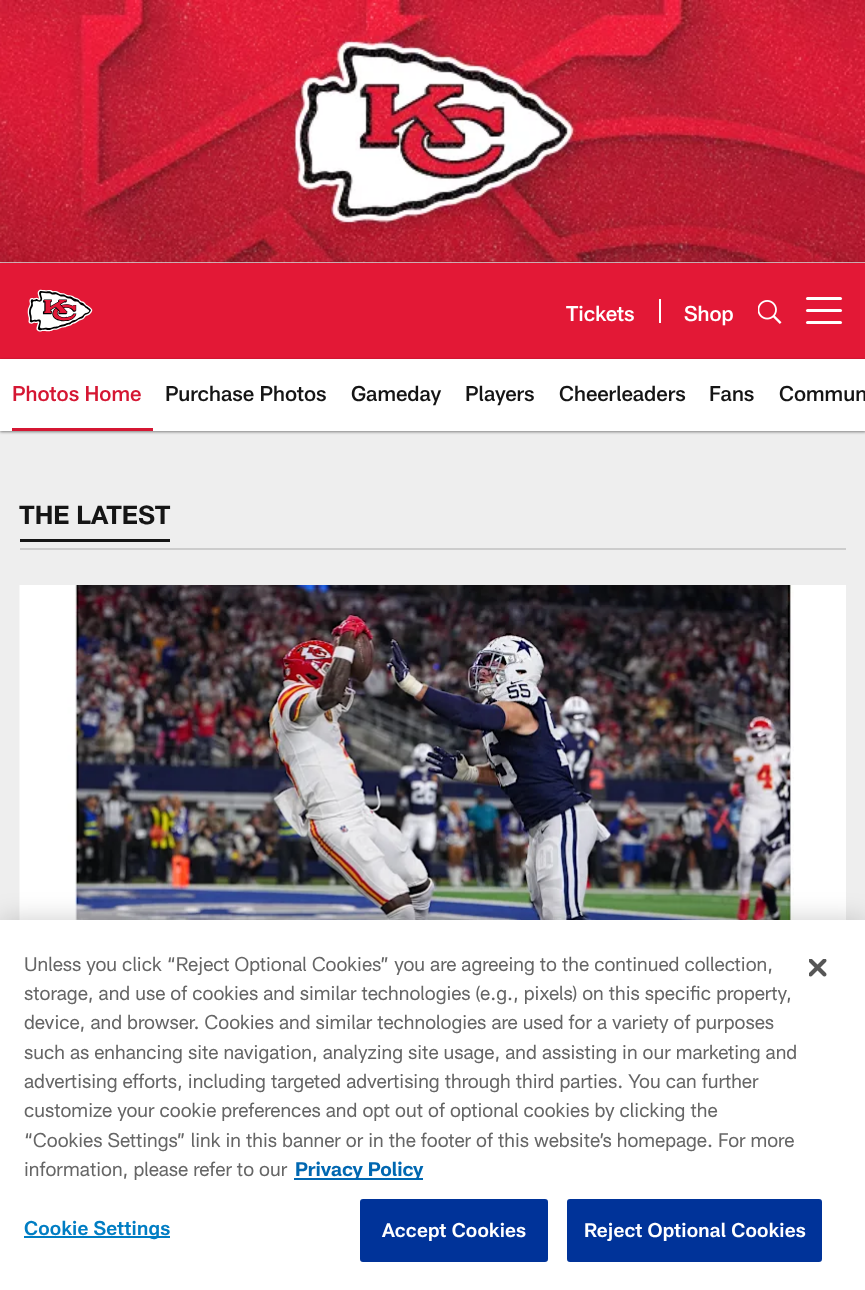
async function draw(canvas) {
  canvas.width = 865;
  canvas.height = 1290;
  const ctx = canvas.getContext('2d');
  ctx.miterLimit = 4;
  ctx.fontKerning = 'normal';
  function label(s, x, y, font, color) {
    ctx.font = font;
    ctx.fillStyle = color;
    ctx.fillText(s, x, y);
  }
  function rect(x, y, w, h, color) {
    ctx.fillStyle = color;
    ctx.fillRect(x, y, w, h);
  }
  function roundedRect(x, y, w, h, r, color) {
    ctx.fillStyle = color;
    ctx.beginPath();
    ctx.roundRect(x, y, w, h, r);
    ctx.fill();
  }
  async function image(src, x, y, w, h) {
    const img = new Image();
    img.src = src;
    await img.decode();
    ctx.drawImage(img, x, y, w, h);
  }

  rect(0, 0, 865, 1290, '#eee');
  await image('assets/img1.png', 0, 0, 865, 263);
  ctx.fillStyle = '#00000078';
  ctx.filter = 'blur(1.5px)';
  ctx.beginPath();
  ctx.rect(0, 264, 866, 96);
  ctx.fill();
  ctx.filter = 'none';
  rect(0, 263, 865, 96, '#e31836');
  await image('assets/img2.png', 27, 289, 66, 43);
  label('Tickets', 566, 321, '500 21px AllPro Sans', '#fff');
  rect(659, 299, 2, 24, '#fff');
  label('Shop', 684, 321, '500 21px AllPro Sans', '#fff');
  await image('assets/img3.png', 758, 300, 24, 24);
  roundedRect(806, 309, 36, 3, 1.5, '#fff');
  roundedRect(806, 297, 36, 3, 1.5, '#fff');
  roundedRect(806, 321, 36, 3, 1.5, '#fff');
  ctx.fillStyle = '#00000078';
  ctx.filter = 'blur(1.5px)';
  ctx.beginPath();
  ctx.rect(0, 360, 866, 72);
  ctx.fill();
  ctx.filter = 'none';
  rect(0, 359, 865, 72, '#fff');
  rect(12, 428, 141, 3, '#d51733');
  label('Photos Home', 12, 401, '500 21px AllPro Sans', '#d51733');
  label('Purchase Photos', 165, 401, '500 21px AllPro Sans', '#151515');
  label('Gameday', 351, 401, '500 21px AllPro Sans', '#151515');
  label('Players', 465, 401, '500 21px AllPro Sans', '#151515');
  label('Cheerleaders', 559, 401, '500 21px AllPro Sans', '#151515');
  label('Fans', 709, 401, '500 21px AllPro Sans', '#151515');
  label('Commun', 779, 401, '500 21px AllPro Sans', '#151515');
  rect(20, 548, 826, 2, '#ccc');
  rect(20, 539, 150, 3, '#151515');
  label('THE LATEST', 19, 524, 'bold 25.75px AllPro Sans', '#151515');
  rect(794, 585, 52, 335, '#fff');
  await image('assets/img4.png', 19, 585, 775, 335);
  ctx.fillStyle = '#00000033';
  ctx.filter = 'blur(13.5px)';
  ctx.beginPath();
  ctx.rect(0, 920, 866, 370);
  ctx.fill();
  ctx.filter = 'none';
  rect(0, 920, 865, 370, '#fff');
  label('Unless you click “Reject Optional Cookies” you are agreeing to the continued collection,', 24, 971, '19.5px AllPro Sans', '#666');
  label('storage, and use of cookies and similar technologies (e.g., pixels) on this specific property,', 24, 1000, '19.5px AllPro Sans', '#666');
  label('device, and browser. Cookies and similar technologies are used for a variety of purposes', 24, 1029, '19.5px AllPro Sans', '#666');
  label('such as enhancing site navigation, analyzing site usage, and assisting in our marketing and', 24, 1059, '19.5px AllPro Sans', '#666');
  label('advertising efforts, including targeted advertising through third parties. You can further', 24, 1088, '19.5px AllPro Sans', '#666');
  label('customize your cookie preferences and opt out of optional cookies by clicking the', 24, 1117, '19.5px AllPro Sans', '#666');
  label('“Cookies Settings” link in this banner or in the footer of this website’s homepage. For more', 24, 1147, '19.5px AllPro Sans', '#666');
  label('information, please refer to our', 24, 1176, '19.5px AllPro Sans', '#666');
  rect(294, 1178, 129, 2, '#0067b1');
  label('Privacy Policy', 295, 1176, 'bold 19.5px AllPro Sans', '#0067b1');
  rect(24, 1236, 146, 2, '#007dc3');
  ctx.letterSpacing = '0.2px';
  label('Cookie Settings', 24, 1235, '600 19.5px AllPro Sans', '#007dc3');
  ctx.fillStyle = '#039';
  ctx.beginPath();
  ctx.roundRect(361, 1200, 186, 61, 2);
  ctx.fill();
  ctx.strokeStyle = '#039';
  ctx.lineWidth = 2;
  ctx.stroke();
  label('Accept Cookies', 382, 1237, '600 19.5px AllPro Sans', '#fff');
  ctx.fillStyle = '#039';
  ctx.beginPath();
  ctx.roundRect(568, 1200, 253, 61, 2);
  ctx.fill();
  ctx.stroke();
  label('Reject Optional Cookies', 584, 1237, '600 19.5px AllPro Sans', '#fff');
  await image('assets/img5.png', 809, 959, 18, 18);
}

draw(document.querySelector('canvas'));
